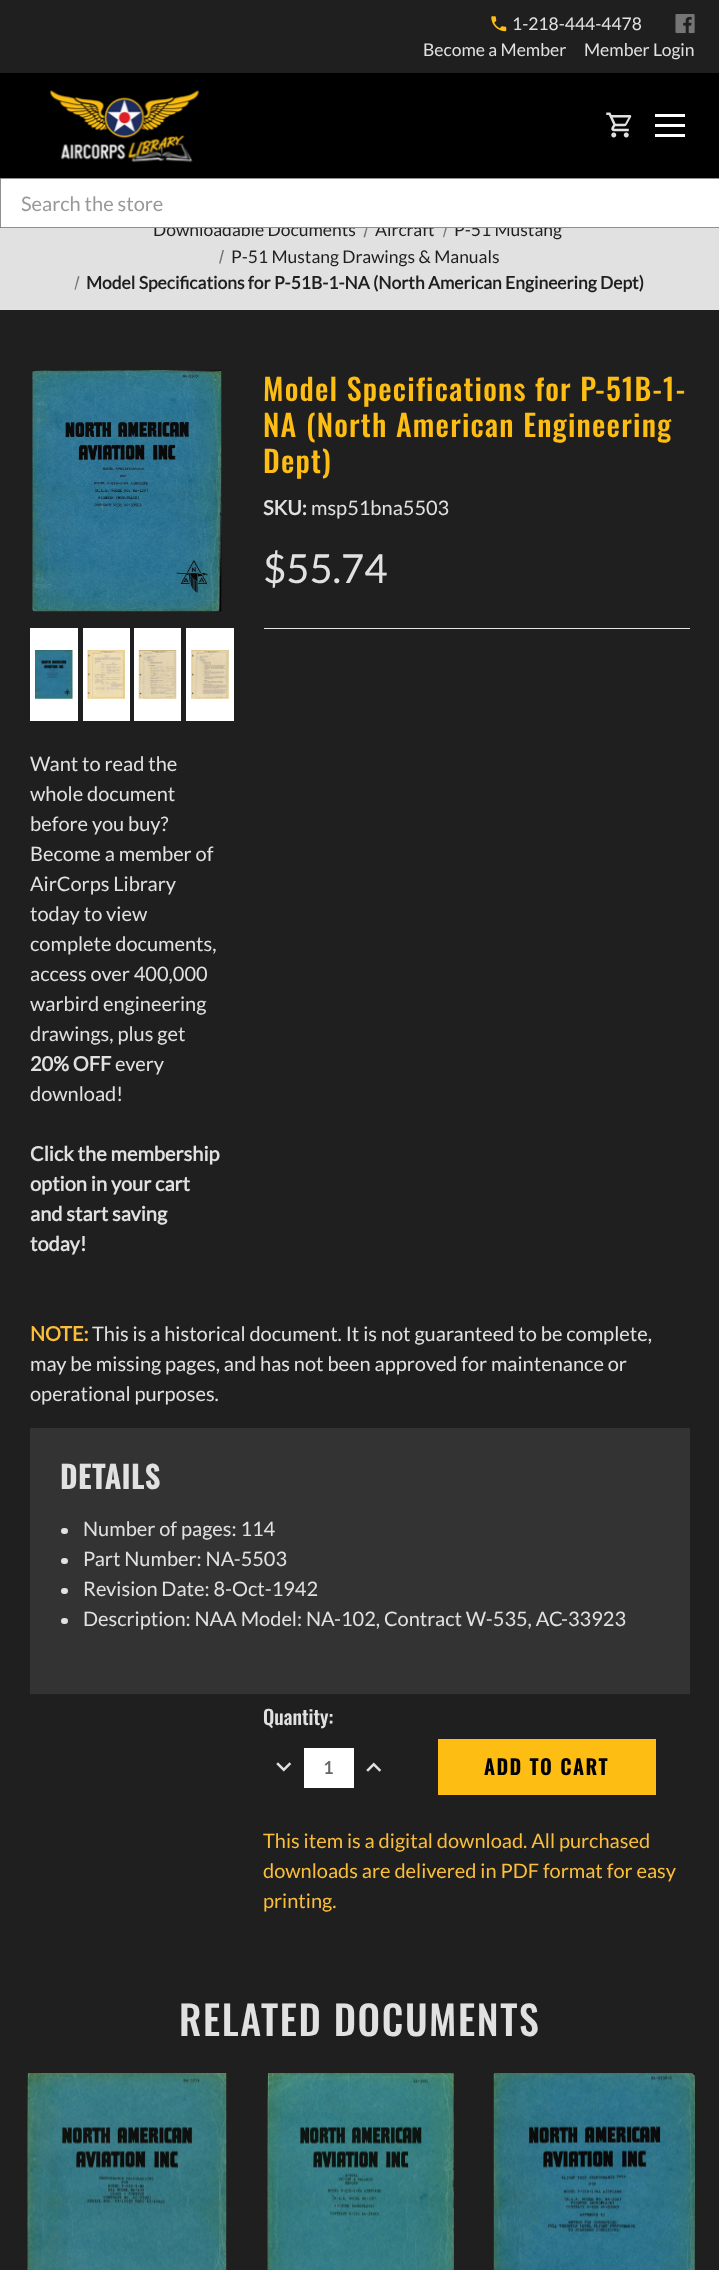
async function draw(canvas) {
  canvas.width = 719;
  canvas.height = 2270;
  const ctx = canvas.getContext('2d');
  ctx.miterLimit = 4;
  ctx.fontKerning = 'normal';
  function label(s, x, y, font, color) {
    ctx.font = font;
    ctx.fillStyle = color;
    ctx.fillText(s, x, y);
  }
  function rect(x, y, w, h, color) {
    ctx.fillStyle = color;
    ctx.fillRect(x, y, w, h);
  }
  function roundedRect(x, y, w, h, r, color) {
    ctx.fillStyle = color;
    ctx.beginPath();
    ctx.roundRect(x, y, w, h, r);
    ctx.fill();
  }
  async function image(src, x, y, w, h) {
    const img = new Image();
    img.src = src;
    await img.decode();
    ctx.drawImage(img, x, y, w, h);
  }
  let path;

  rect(0, 0, 719, 2270, '#1f1f20');
  rect(0, 73, 719, 105, '#000');
  await image('assets/img1.png', 491, 16, 16, 16);
  label('1-218-444-4478', 512, 30, '17.5px Lato', '#e1e1e1');
  await image('assets/img2.png', 675, 14, 20, 20);
  label('Become a Member', 423, 56, '17.5px Lato', '#e1e1e1');
  label('Member Login', 584, 56, '17.5px Lato', '#e1e1e1');
  await image('assets/img3.png', 49, 90, 151, 73);
  await image('assets/img4.png', 606, 112, 26, 26);
  rect(655, 124, 30, 3, '#fff');
  rect(655, 114, 30, 3, '#fff');
  rect(655, 134, 30, 3, '#fff');
  rect(0, 228, 719, 82, '#e1e1e1');
  label('Downloadable Documents', 153, 236, '17.5px Lato', '#1f1f20');
  ctx.fillStyle = '#757575';
  path = new Path2D('M367.5 223.5L368.5 224L365 237.5L363.5 237Z');
  ctx.fill(path);
  label('Aircraft', 375, 236, '17.5px Lato', '#1f1f20');
  ctx.fillStyle = '#757575';
  path = new Path2D('M446.5 223.5L448 224L444 237.5L443 237Z');
  ctx.fill(path);
  label('P-51 Mustang', 454, 236, '17.5px Lato', '#1f1f20');
  ctx.fillStyle = '#fff';
  ctx.beginPath();
  ctx.rect(0.5, 178.5, 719, 49);
  ctx.fill();
  ctx.strokeStyle = '#8f8f8f';
  ctx.stroke();
  label('Search the store', 21, 211, '20px Lato', '#999');
  ctx.fillStyle = '#757575';
  path = new Path2D('M222.5 250H224L220.5 263.5H219Z');
  ctx.fill(path);
  label('P-51 Mustang Drawings & Manuals', 231, 263, '17.5px Lato', '#1f1f20');
  ctx.fillStyle = '#757575';
  path = new Path2D('M78 276L79.5 276.5L75.5 290L74.5 289.5Z');
  ctx.fill(path);
  label('Model Specifications for P-51B-1-NA (North American Engineering Dept)', 86, 289, 'bold 17.5px Lato', '#1f1f20');
  rect(264, 628, 426, 1, '#e5e5e5');
  ctx.letterSpacing = '1.2px';
  label('Model Specifications for P-51B-1-', 263, 401, '500 30px Oswald', '#fdbd13');
  label('NA (North American Engineering', 263, 437, '500 30px Oswald', '#fdbd13');
  label('Dept)', 263, 473, '500 30px Oswald', '#fdbd13');
  ctx.letterSpacing = '0px';
  label('SKU:', 263, 515, 'bold 20px Lato', '#e1e1e1');
  label('msp51bna5503', 311, 515, '20px Lato', '#e1e1e1');
  label('$55.74', 263, 583, '40px Lato', '#e1e1e1');
  await image('assets/img5.png', 32, 370, 190, 242);
  rect(30, 628, 48, 93, '#fff');
  await image('assets/img6.png', 35, 650, 38, 49);
  rect(83, 628, 47, 93, '#fff');
  await image('assets/img7.png', 87, 650, 38, 49);
  rect(134, 628, 47, 93, '#fff');
  await image('assets/img8.png', 138, 650, 39, 49);
  rect(186, 628, 48, 93, '#fff');
  await image('assets/img9.png', 191, 650, 38, 49);
  label('Want to read the', 30, 771, '20px Lato', '#e1e1e1');
  label('whole document', 30, 801, '20px Lato', '#e1e1e1');
  label('before you buy?', 30, 831, '20px Lato', '#e1e1e1');
  label('Become a member of', 30, 861, '20px Lato', '#e1e1e1');
  label('AirCorps Library', 30, 891, '20px Lato', '#e1e1e1');
  label('today to view', 30, 921, '20px Lato', '#e1e1e1');
  label('complete documents,', 30, 951, '20px Lato', '#e1e1e1');
  label('access over 400,000', 30, 981, '20px Lato', '#e1e1e1');
  label('warbird engineering', 30, 1011, '20px Lato', '#e1e1e1');
  label('drawings, plus get', 30, 1041, '20px Lato', '#e1e1e1');
  label('20% OFF', 30, 1071, 'bold 20px Lato', '#e1e1e1');
  label('every', 115, 1071, '20px Lato', '#e1e1e1');
  label('download!', 30, 1101, '20px Lato', '#e1e1e1');
  label('Click the membership', 30, 1161, 'bold 20px Lato', '#e1e1e1');
  label('option in your cart', 30, 1191, 'bold 20px Lato', '#e1e1e1');
  label('and start saving', 30, 1221, 'bold 20px Lato', '#e1e1e1');
  label('today!', 30, 1251, 'bold 20px Lato', '#e1e1e1');
  label('NOTE:', 30, 1341, 'bold 20px Lato', '#fbbe3b');
  label('This is a historical document. It is not guaranteed to be complete,', 92, 1341, '20px Lato', '#e1e1e1');
  label('may be missing pages, and has not been approved for maintenance or', 30, 1371, '20px Lato', '#e1e1e1');
  label('operational purposes.', 30, 1401, '20px Lato', '#e1e1e1');
  rect(30, 1428, 660, 266, '#333');
  ctx.letterSpacing = '1.2px';
  label('DETAILS', 60, 1489, 'bold 30px Oswald', '#e1e1e1');
  roundedRect(61, 1528, 7, 6, 3, '#e1e1e1');
  ctx.letterSpacing = '0px';
  label('Number of pages: 114', 83, 1536, '20px Lato', '#e1e1e1');
  roundedRect(61, 1558, 7, 6, 3, '#e1e1e1');
  label('Part Number: NA-5503', 83, 1566, '20px Lato', '#e1e1e1');
  roundedRect(61, 1588, 7, 6, 3, '#e1e1e1');
  label('Revision Date: 8-Oct-1942', 83, 1596, '20px Lato', '#e1e1e1');
  roundedRect(61, 1618, 7, 6, 3, '#e1e1e1');
  label('Description: NAA Model: NA-102, Contract W-535, AC-33923', 83, 1626, '20px Lato', '#e1e1e1');
  label('Quantity:', 263, 1725, '500 20px Oswald', '#e1e1e1');
  await image('assets/img10.png', 276, 1762, 16, 10);
  rect(304, 1748, 50, 40, '#fff');
  label('1', 323, 1774, 'bold 17.5px Lato', '#666');
  await image('assets/img11.png', 366, 1762, 16, 10);
  rect(438, 1739, 218, 56, '#fdbd13');
  ctx.letterSpacing = '2px';
  label('ADD TO CART', 484, 1775, 'bold 20px Oswald', '#000');
  ctx.letterSpacing = '0px';
  label('This item is a digital download. All purchased', 263, 1848, '20px Lato', '#fbbe3b');
  label('downloads are delivered in PDF format for easy', 263, 1878, '20px Lato', '#fbbe3b');
  label('printing.', 263, 1908, '20px Lato', '#fbbe3b');
  ctx.letterSpacing = '1.6px';
  label('RELATED DOCUMENTS', 179, 2036, '500 40px Oswald', '#e1e1e1');
  await image('assets/img12.png', 27, 2073, 200, 197);
  await image('assets/img13.png', 267, 2073, 187, 197);
  await image('assets/img14.png', 493, 2073, 202, 197);
}

draw(document.querySelector('canvas'));
